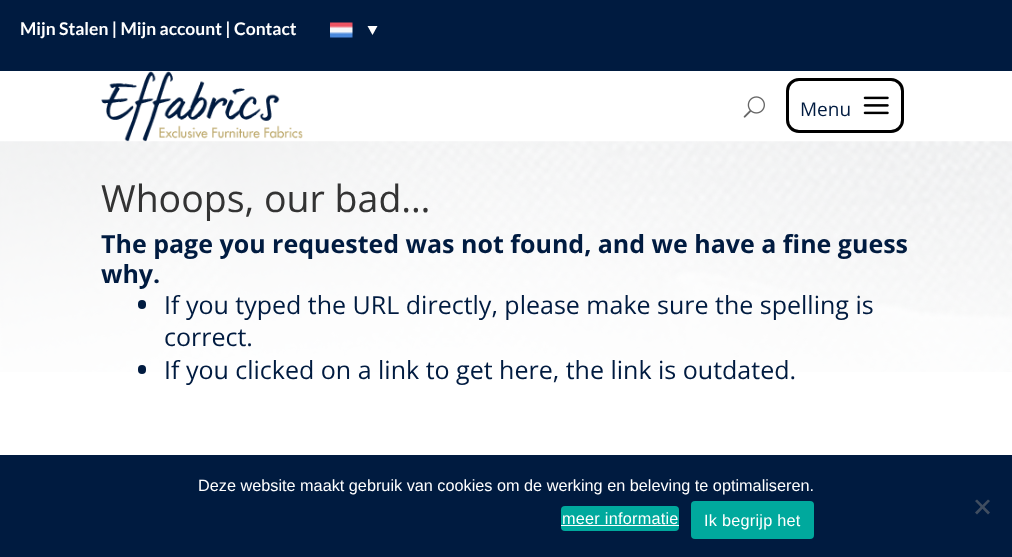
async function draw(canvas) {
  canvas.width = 1012;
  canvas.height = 557;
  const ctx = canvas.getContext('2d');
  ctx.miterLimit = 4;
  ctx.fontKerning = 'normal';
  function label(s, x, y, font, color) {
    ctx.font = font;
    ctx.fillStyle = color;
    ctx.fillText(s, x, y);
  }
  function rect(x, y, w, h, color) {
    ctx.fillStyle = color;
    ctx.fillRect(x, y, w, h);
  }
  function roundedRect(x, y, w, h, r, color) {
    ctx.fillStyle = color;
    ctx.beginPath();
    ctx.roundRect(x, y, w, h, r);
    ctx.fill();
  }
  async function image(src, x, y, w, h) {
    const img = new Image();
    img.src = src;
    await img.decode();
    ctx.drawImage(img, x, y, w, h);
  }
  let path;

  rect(0, 0, 1012, 557, '#fff');
  rect(0, 0, 1012, 71, '#001b40');
  label('Mijn Stalen | Mijn account | Contact', 20, 35, 'bold 17.5px Lato', '#fff');
  await image('assets/img1.png', 330, 22, 23, 16);
  path = new Path2D('M367.5 26H377.5L372.5 35Z');
  ctx.fill(path);
  await image('assets/img5.png', 0, 141, 1012, 231);
  await image('assets/img2.png', 101, 71, 202, 71);
  await image('assets/img3.png', 743, 96, 22, 22);
  ctx.beginPath();
  ctx.roundRect(787.5, 79.5, 115, 52, 11.5);
  ctx.strokeStyle = '#000';
  ctx.lineWidth = 3;
  ctx.stroke();
  label('Menu', 800, 116, '19px Open Sans', '#001b40');
  await image('assets/img4.png', 863, 96, 26, 19);
  label('Whoops, our bad…', 101, 212, '37.5px Open Sans', '#333');
  label('The page you requested was not found, and we have a fine guess', 101, 253, 'bold 25px Open Sans', '#001b40');
  label('why.', 101, 283, 'bold 25px Open Sans', '#001b40');
  roundedRect(138, 300, 8, 9, 4, '#001b40');
  label('If you typed the URL directly, please make sure the spelling is', 164, 314, '25px Open Sans', '#001b40');
  label('correct.', 164, 346, '25px Open Sans', '#001b40');
  roundedRect(138, 365, 8, 9, 4, '#001b40');
  label('If you clicked on a link to get here, the link is outdated.', 164, 379, '25px Open Sans', '#001b40');
  rect(0, 455, 1012, 102, '#001b40');
  label('Deze website maakt gebruik van cookies om de werking en beleving te optimaliseren.', 198, 491, '16.25px Liberation Sans', '#fff');
  ctx.fillStyle = '#404e60';
  path = new Path2D('M988 499.5L990 501L977 514.5L975 512.5Z');
  ctx.fill(path);
  path = new Path2D('M975 501L977 499.5L990 512.5L988 514.5Z');
  ctx.fill(path);
  roundedRect(561, 506, 118, 25, 4, '#00a99d');
  ctx.letterSpacing = '0.25px';
  label('meer informatie', 562, 524, '16.25px Liberation Sans', '#fff');
  rect(561, 525, 118, 1, '#fff');
  roundedRect(691, 501, 123, 38, 4, '#00a99d');
  label('Ik begrijp het', 704, 526, '16.25px Liberation Sans', '#fff');
}

draw(document.querySelector('canvas'));
